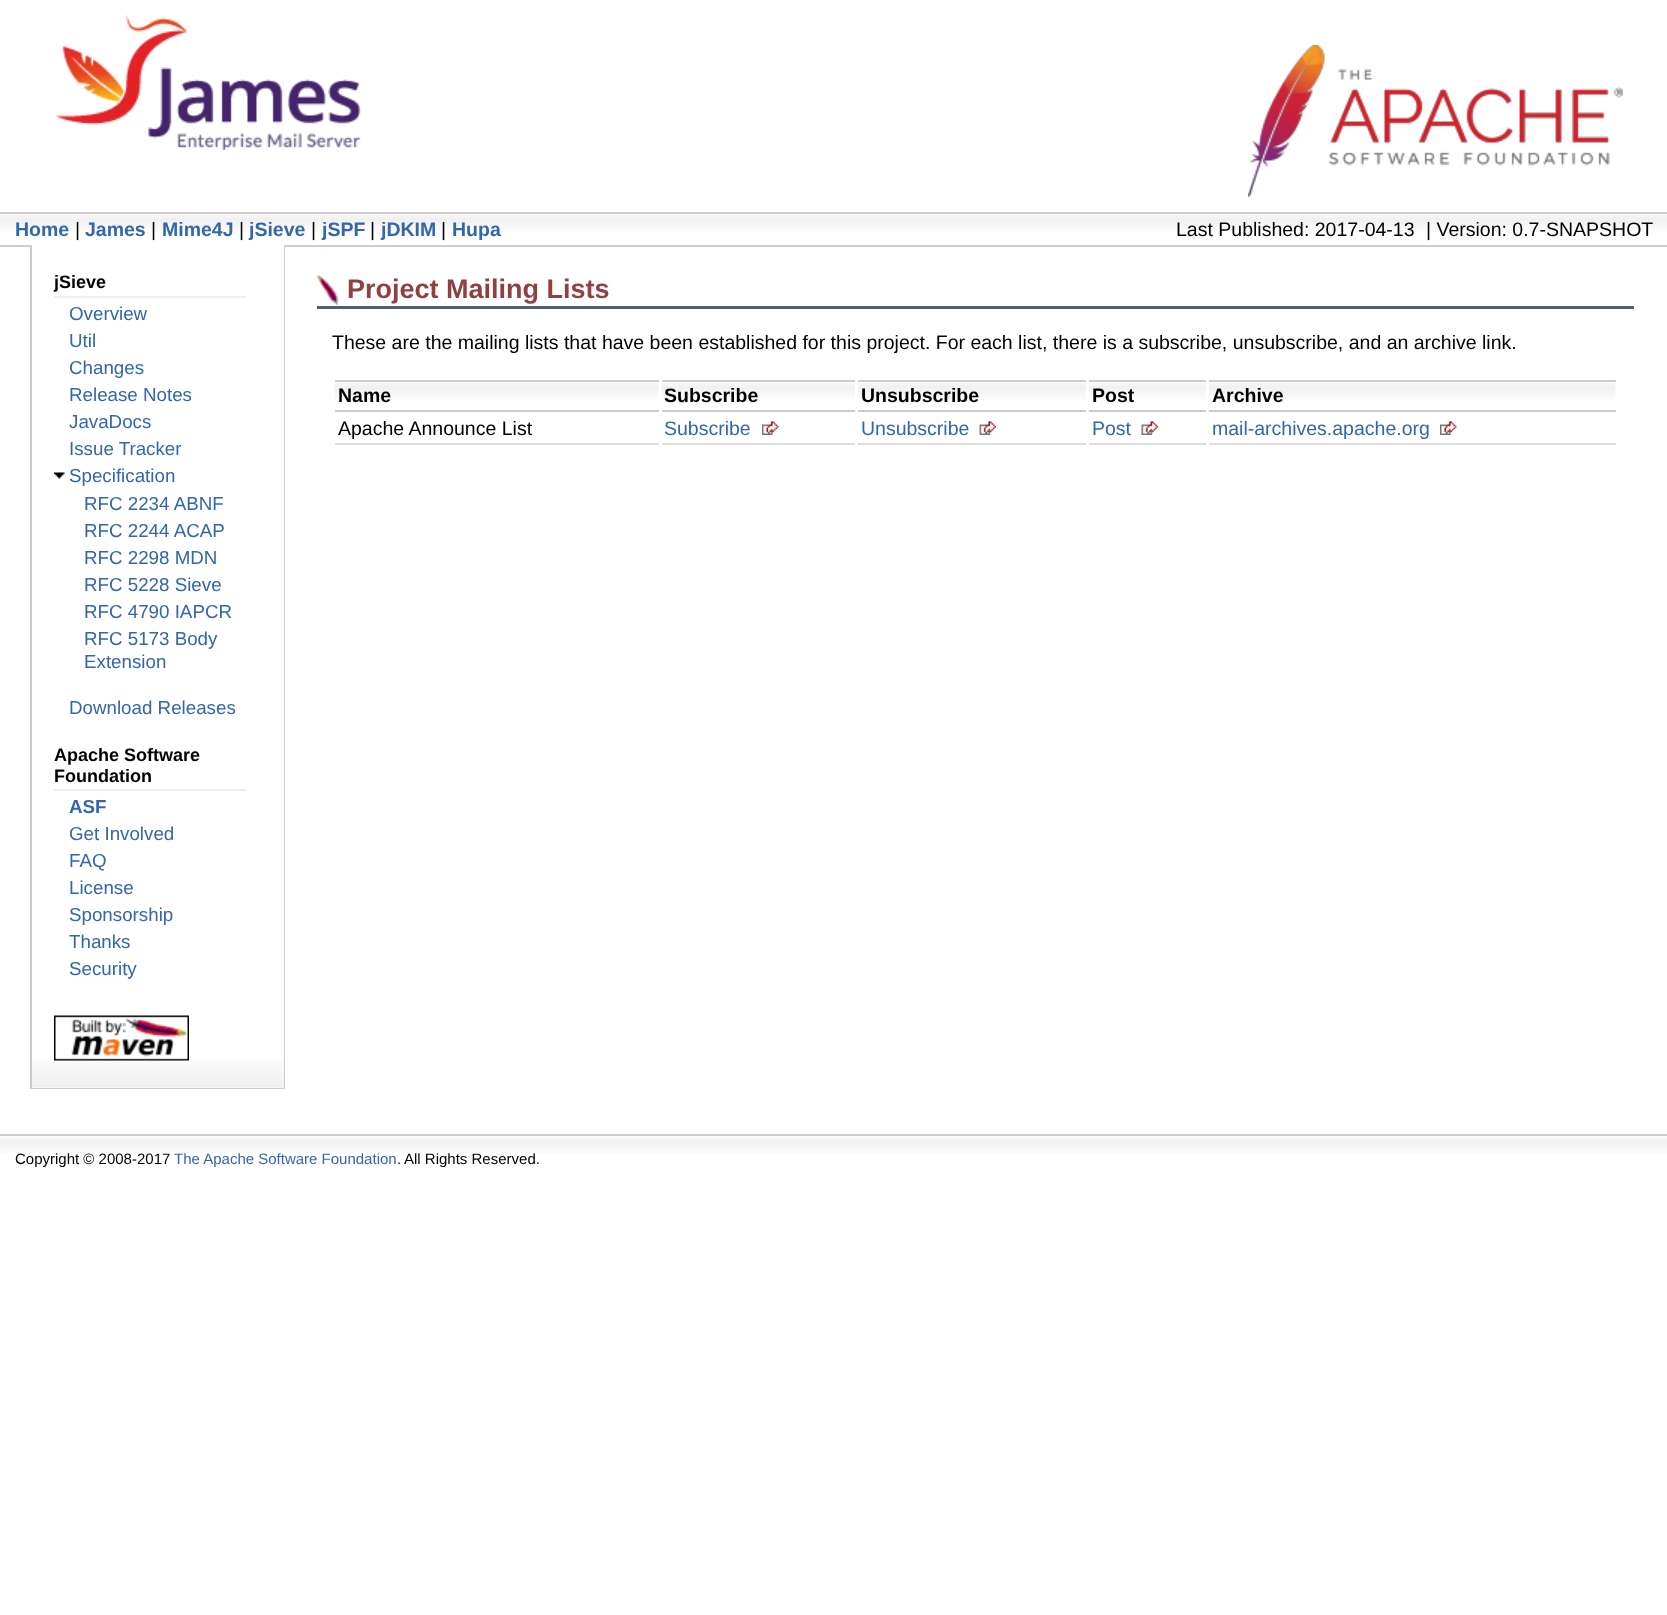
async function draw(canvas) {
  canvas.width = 1667;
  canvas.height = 1615;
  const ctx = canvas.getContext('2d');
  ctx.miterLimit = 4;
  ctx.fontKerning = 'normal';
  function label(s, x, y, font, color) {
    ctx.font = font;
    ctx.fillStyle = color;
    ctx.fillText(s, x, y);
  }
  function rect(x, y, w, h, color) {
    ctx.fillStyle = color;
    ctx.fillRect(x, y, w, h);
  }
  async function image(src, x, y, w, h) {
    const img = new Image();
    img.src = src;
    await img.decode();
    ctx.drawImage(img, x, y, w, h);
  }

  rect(0, 0, 1667, 1615, '#fff');
  await image('assets/img1.png', 55, 15, 306, 135);
  await image('assets/img2.png', 1248, 45, 375, 152);
  await image('assets/img3.png', 0, 214, 1667, 31);
  rect(0, 212, 1667, 2, '#ccc');
  rect(0, 245, 1667, 2, '#ccc');
  label('Home', 15, 236, 'bold 19.5px Liberation Sans', '#36a');
  label('|', 75, 236, '19.5px Liberation Sans', '#000');
  label('James', 85, 236, 'bold 19.5px Liberation Sans', '#36a');
  label('|', 151, 236, '19.5px Liberation Sans', '#000');
  label('Mime4J', 162, 236, 'bold 19.5px Liberation Sans', '#36a');
  label('|', 239, 236, '19.5px Liberation Sans', '#000');
  label('jSieve', 249, 236, 'bold 19.5px Liberation Sans', '#36a');
  label('|', 311, 236, '19.5px Liberation Sans', '#000');
  label('jSPF', 322, 236, 'bold 19.5px Liberation Sans', '#36a');
  label('|', 370, 236, '19.5px Liberation Sans', '#000');
  label('jDKIM', 381, 236, 'bold 19.5px Liberation Sans', '#36a');
  label('|', 441, 236, '19.5px Liberation Sans', '#000');
  label('Hupa', 452, 236, 'bold 19.5px Liberation Sans', '#36a');
  label('Last Published: 2017-04-13', 1176, 236, '19.5px Liberation Sans', '#000');
  label('| Version: 0.7-SNAPSHOT', 1426, 236, '19.5px Liberation Sans', '#000');
  rect(32, 245, 252, 2, '#fff');
  await image('assets/img4.png', 32, 1060, 252, 28);
  rect(284, 245, 1, 844, '#ccc');
  rect(30, 1088, 255, 1, '#ccc');
  rect(30, 245, 2, 844, '#ccc');
  rect(54, 296, 192, 2, '#eee');
  label('jSieve', 54, 288, 'bold 18px Liberation Sans', '#000');
  label('Overview', 69, 320, '18.75px Liberation Sans', '#36a');
  label('Util', 69, 347, '18.75px Liberation Sans', '#36a');
  label('Changes', 69, 374, '18.75px Liberation Sans', '#36a');
  label('Release Notes', 69, 401, '18.75px Liberation Sans', '#36a');
  label('JavaDocs', 69, 428, '18.75px Liberation Sans', '#36a');
  label('Issue Tracker', 69, 455, '18.75px Liberation Sans', '#36a');
  await image('assets/img5.png', 54, 472, 11, 7);
  label('Specification', 69, 482, '18.75px Liberation Sans', '#36a');
  label('RFC 2234 ABNF', 84, 510, '18.75px Liberation Sans', '#36a');
  label('RFC 2244 ACAP', 84, 537, '18.75px Liberation Sans', '#36a');
  label('RFC 2298 MDN', 84, 564, '18.75px Liberation Sans', '#36a');
  label('RFC 5228 Sieve', 84, 591, '18.75px Liberation Sans', '#36a');
  label('RFC 4790 IAPCR', 84, 618, '18.75px Liberation Sans', '#36a');
  label('RFC 5173 Body', 84, 645, '18.75px Liberation Sans', '#36a');
  label('Extension', 84, 668, '18.75px Liberation Sans', '#36a');
  label('Download Releases', 69, 714, '18.75px Liberation Sans', '#36a');
  rect(54, 789, 192, 2, '#eee');
  label('Apache Software', 54, 761, 'bold 18px Liberation Sans', '#000');
  label('Foundation', 54, 782, 'bold 18px Liberation Sans', '#000');
  label('ASF', 69, 813, 'bold 18.75px Liberation Sans', '#36a');
  label('Get Involved', 69, 840, '18.75px Liberation Sans', '#36a');
  label('FAQ', 69, 867, '18.75px Liberation Sans', '#36a');
  label('License', 69, 894, '18.75px Liberation Sans', '#36a');
  label('Sponsorship', 69, 921, '18.75px Liberation Sans', '#36a');
  label('Thanks', 69, 948, '18.75px Liberation Sans', '#36a');
  label('Security', 69, 975, '18.75px Liberation Sans', '#36a');
  await image('assets/img6.png', 54, 1015, 135, 46);
  await image('assets/img7.png', 316, 274, 23, 31);
  rect(317, 306, 1317, 3, '#525d76');
  label('Project Mailing Lists', 347, 298, 'bold 27px Liberation Sans', '#904040');
  label('These are the mailing lists that have been established for this project. For each list, there is a subscribe, unsubscribe, and an archive link.', 332, 349, '19.5px Liberation Sans', '#000');
  await image('assets/img8.png', 334, 380, 325, 31);
  rect(335, 380, 324, 2, '#ccc');
  rect(335, 410, 324, 2, '#ccc');
  label('Name', 338, 402, 'bold 19.5px Liberation Sans', '#000');
  await image('assets/img9.png', 661, 380, 194, 31);
  rect(662, 380, 193, 2, '#ccc');
  rect(662, 410, 193, 2, '#ccc');
  label('Subscribe', 664, 402, 'bold 19.5px Liberation Sans', '#000');
  await image('assets/img10.png', 858, 382, 228, 28);
  rect(858, 380, 228, 2, '#ccc');
  rect(858, 410, 228, 2, '#ccc');
  label('Unsubscribe', 861, 402, 'bold 19.5px Liberation Sans', '#000');
  await image('assets/img11.png', 1089, 382, 117, 28);
  rect(1089, 380, 117, 2, '#ccc');
  rect(1089, 410, 117, 2, '#ccc');
  label('Post', 1092, 402, 'bold 19.5px Liberation Sans', '#000');
  await image('assets/img12.png', 1209, 382, 407, 28);
  rect(1209, 380, 407, 2, '#ccc');
  rect(1209, 410, 407, 2, '#ccc');
  label('Archive', 1212, 402, 'bold 19.5px Liberation Sans', '#000');
  rect(335, 443, 324, 2, '#ddd');
  label('Apache Announce List', 338, 435, '19.5px Liberation Sans', '#000');
  rect(662, 443, 193, 2, '#ddd');
  label('Subscribe', 664, 435, '19.5px Liberation Sans', '#36a');
  await image('assets/img13.png', 762, 421, 17, 14);
  rect(858, 443, 228, 2, '#ddd');
  label('Unsubscribe', 861, 435, '19.5px Liberation Sans', '#36a');
  await image('assets/img14.png', 979, 421, 17, 14);
  rect(1089, 443, 117, 2, '#ddd');
  label('Post', 1092, 435, '19.5px Liberation Sans', '#36a');
  await image('assets/img15.png', 1141, 421, 17, 14);
  rect(1209, 443, 407, 2, '#ddd');
  label('mail-archives.apache.org', 1212, 435, '19.5px Liberation Sans', '#36a');
  await image('assets/img13.png', 1440, 421, 17, 14);
  await image('assets/img16.png', 0, 1137, 1667, 16);
  rect(0, 1134, 1667, 2, '#ccc');
  label('Copyright © 2008-2017', 15, 1164, '15px Liberation Sans', '#000');
  label('The Apache Software Foundation', 174, 1164, '15px Liberation Sans', '#36a');
  label('.', 397, 1164, '15px Liberation Sans', '#000');
  label('All Rights Reserved.', 404, 1164, '15px Liberation Sans', '#000');
}

draw(document.querySelector('canvas'));
